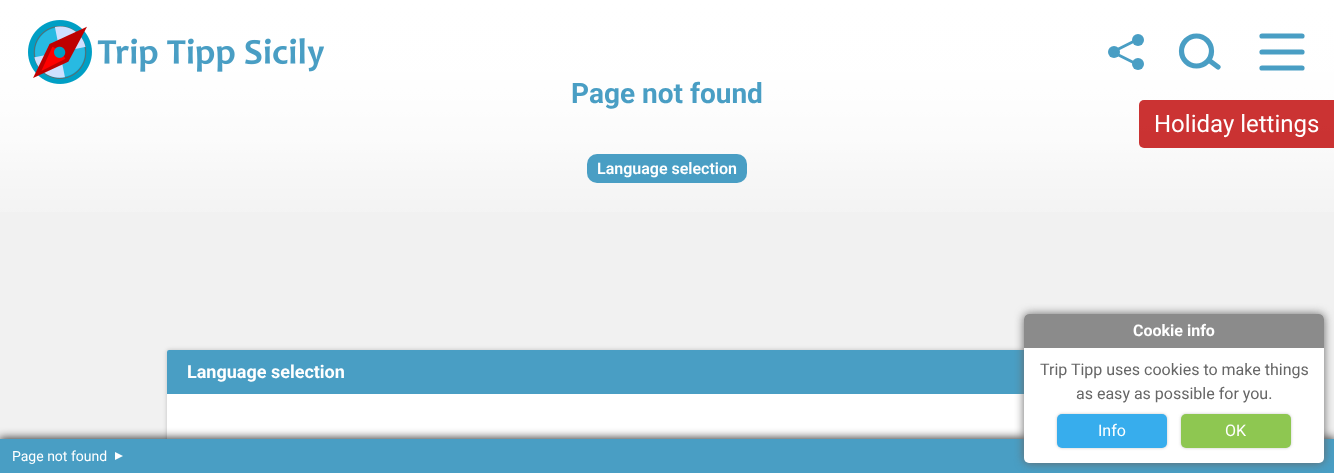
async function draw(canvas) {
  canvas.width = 1334;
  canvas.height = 473;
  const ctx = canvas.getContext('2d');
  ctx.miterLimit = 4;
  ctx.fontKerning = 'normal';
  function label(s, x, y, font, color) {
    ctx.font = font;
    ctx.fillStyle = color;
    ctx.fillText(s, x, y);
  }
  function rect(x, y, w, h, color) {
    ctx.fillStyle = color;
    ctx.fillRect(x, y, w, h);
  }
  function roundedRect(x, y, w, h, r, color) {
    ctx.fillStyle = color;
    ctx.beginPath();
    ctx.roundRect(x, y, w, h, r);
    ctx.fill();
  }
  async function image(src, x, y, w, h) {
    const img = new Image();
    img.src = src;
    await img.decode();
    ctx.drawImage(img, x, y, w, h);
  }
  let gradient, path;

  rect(0, 0, 1334, 473, '#f1f1f1');
  gradient = ctx.createLinearGradient(667, 0, 667, 320);
  gradient.addColorStop(0, '#fff');
  gradient.addColorStop(0.22, '#fffffff7');
  gradient.addColorStop(0.31, '#ffffffe6');
  gradient.addColorStop(0.38, '#ffffffcc');
  gradient.addColorStop(0.44, '#ffffffb3');
  gradient.addColorStop(0.48, '#ffffff99');
  gradient.addColorStop(0.52, '#ffffff80');
  gradient.addColorStop(0.56, '#ffffff66');
  gradient.addColorStop(0.6, '#ffffff4d');
  gradient.addColorStop(0.65, '#ffffff33');
  gradient.addColorStop(0.73, '#ffffff1a');
  gradient.addColorStop(0.79, '#ffffff0d');
  gradient.addColorStop(0.87, '#ffffff05');
  gradient.addColorStop(1, '#ffffff00');
  ctx.fillStyle = gradient;
  ctx.fillRect(0, 0, 1334, 212);
  await image('assets/img1.png', 28, 20, 64, 64);
  await image('assets/img2.png', 97, 38, 227, 34);
  ctx.fillStyle = '#499ec4';
  ctx.beginPath();
  ctx.arc(1138, 40, 6, 0, 2 * Math.PI);
  ctx.fill();
  ctx.beginPath();
  ctx.arc(1114, 52, 6, 0, 2 * Math.PI);
  ctx.fill();
  ctx.beginPath();
  ctx.arc(1138, 64, 6, 0, 2 * Math.PI);
  ctx.fill();
  path = new Path2D('M1112.5 52L1136.5 40M1112.5 52L1136.5 64');
  ctx.strokeStyle = '#499ec4';
  ctx.lineWidth = 3;
  ctx.stroke(path);
  ctx.beginPath();
  ctx.arc(1196.5, 51, 15, 0, 2 * Math.PI);
  ctx.lineWidth = 5.2;
  ctx.stroke();
  path = new Path2D('M1210 61L1218 67');
  ctx.lineCap = 'round';
  ctx.stroke(path);
  path = new Path2D('M1262 36H1302M1262 52H1302M1262 68H1302');
  ctx.stroke(path);
  label('Page not found', 571, 103, 'bold 28px Roboto', '#499ec4');
  roundedRect(587, 154, 160, 29, 10, '#499ec4');
  label('Language selection', 597, 174, '600 16px Roboto', '#fff');
  ctx.fillStyle = '#be0000cc';
  ctx.beginPath();
  ctx.roundRect(1139, 100, 195, 48, [5, 0, 0, 5]);
  ctx.fill();
  label('Holiday lettings', 1154, 132, '24px Roboto', '#fff');
  ctx.fillStyle = '#00000033';
  ctx.filter = 'blur(2px)';
  ctx.beginPath();
  ctx.roundRect(167, 350, 1000, 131, 2);
  ctx.fill();
  ctx.filter = 'none';
  roundedRect(167, 350, 1000, 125, 2, '#fff');
  ctx.fillStyle = '#000000cc';
  ctx.filter = 'blur(5px)';
  ctx.beginPath();
  ctx.rect(-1, 438, 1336, 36);
  ctx.fill();
  ctx.filter = 'none';
  rect(0, 439, 1334, 34, '#499ec4');
  label('Page not found', 12, 461, '14px Roboto', '#fff');
  path = new Path2D('M115 452L123 456L115 460Z');
  ctx.fill(path);
  ctx.fillStyle = '#499ec4';
  ctx.beginPath();
  ctx.roundRect(167, 350, 1000, 44, [2, 2, 0, 0]);
  ctx.fill();
  label('Language selection', 187, 378, 'bold 18px Roboto', '#fff');
  ctx.fillStyle = '#666';
  ctx.filter = 'blur(5px)';
  ctx.beginPath();
  ctx.roundRect(1024, 314, 300, 149, 5);
  ctx.fill();
  ctx.filter = 'none';
  roundedRect(1024, 314, 300, 149, 5, '#fff');
  ctx.fillStyle = '#8b8b8b';
  ctx.beginPath();
  ctx.roundRect(1024, 314, 300, 34, [5, 5, 0, 0]);
  ctx.fill();
  label('Cookie info', 1133, 336, 'bold 16px Roboto', '#fff');
  label('Trip Tipp uses cookies to make things', 1040, 375, '16px Roboto', '#666');
  label('as easy as possible for you.', 1076, 399, '16px Roboto', '#666');
  ctx.fillStyle = '#c8c8c8';
  ctx.filter = 'blur(1.5px)';
  ctx.beginPath();
  ctx.roundRect(1057, 414, 110, 34, 5);
  ctx.fill();
  ctx.filter = 'none';
  roundedRect(1057, 414, 110, 34, 5, '#37aded');
  label('Info', 1098, 436, '16px Roboto', '#fff');
  ctx.fillStyle = '#c8c8c8';
  ctx.filter = 'blur(1.5px)';
  ctx.beginPath();
  ctx.roundRect(1181, 414, 110, 34, 5);
  ctx.fill();
  ctx.filter = 'none';
  roundedRect(1181, 414, 110, 34, 5, '#8ec751');
  label('OK', 1225, 436, '16px Roboto', '#fff');
}

draw(document.querySelector('canvas'));
